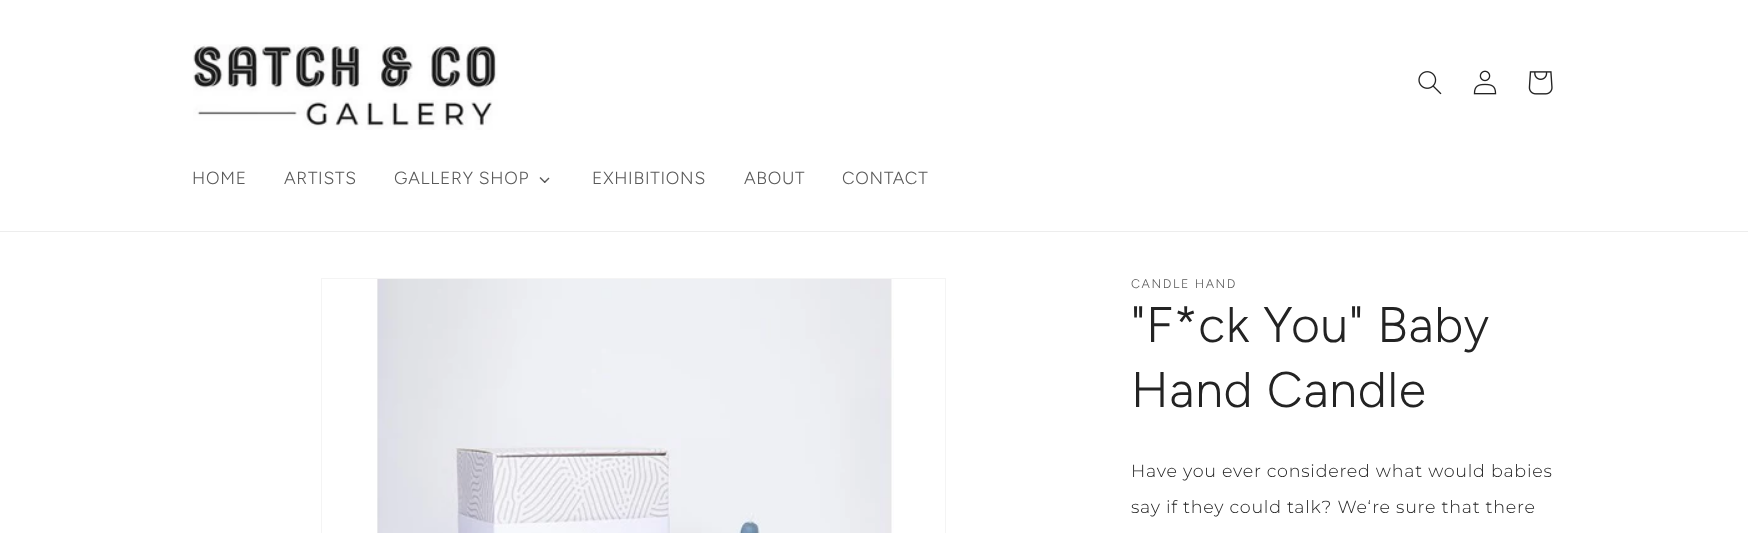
async function draw(canvas) {
  canvas.width = 1748;
  canvas.height = 533;
  const ctx = canvas.getContext('2d');
  ctx.miterLimit = 4;
  ctx.fontKerning = 'normal';
  function label(s, x, y, font, color) {
    ctx.font = font;
    ctx.fillStyle = color;
    ctx.fillText(s, x, y);
  }
  function rect(x, y, w, h, color) {
    ctx.fillStyle = color;
    ctx.fillRect(x, y, w, h);
  }
  async function image(src, x, y, w, h) {
    const img = new Image();
    img.src = src;
    await img.decode();
    ctx.drawImage(img, x, y, w, h);
  }
  let path;

  rect(0, 0, 1748, 533, '#fff');
  rect(0, 231, 1748, 1, '#ededed');
  await image('assets/img1.png', 193, 44, 305, 86);
  await image('assets/img2.png', 1418, 71, 24, 24);
  await image('assets/img3.png', 1473, 70, 24, 25);
  await image('assets/img4.png', 1528, 71, 25, 24);
  ctx.letterSpacing = '0.75px';
  label('HOME', 192, 184, '300 17.5px Figtree', '#5a5a5a');
  label('ARTISTS', 284, 184, '300 17.5px Figtree', '#5a5a5a');
  label('GALLERY SHOP', 394, 184, '300 17.5px Figtree', '#5a5a5a');
  path = new Path2D('M548.5 177.5L549.5 178.5L545 183L544 182Z');
  ctx.fill(path);
  ctx.fillStyle = '#232323bf';
  path = new Path2D('M540.5 177L545.5 182L544.5 183L539.5 178Z');
  ctx.fill(path);
  label('EXHIBITIONS', 592, 184, '300 17.5px Figtree', '#5a5a5a');
  label('ABOUT', 744, 184, '300 17.5px Figtree', '#5a5a5a');
  label('CONTACT', 842, 184, '300 17.5px Figtree', '#5a5a5a');
  ctx.strokeStyle = '#f4f4f4';
  ctx.strokeRect(321.5, 278.5, 624, 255);
  await image('assets/img5.png', 377, 279, 517, 254);
  ctx.letterSpacing = '1.6px';
  label('CANDLE HAND', 1131, 288, '300 12.5px Figtree', '#5a5a5a');
  ctx.letterSpacing = '0.75px';
  label('"F*ck You" Baby', 1131, 342, '300 50px Figtree', '#232323');
  label('Hand Candle', 1131, 407, '300 50px Figtree', '#232323');
  label('Have you ever considered what would babies', 1131, 477, '300 17.5px Montserrat', '#232323');
  label('say if they could talk? We‘re sure that there', 1131, 513, '300 17.5px Montserrat', '#232323');
}

draw(document.querySelector('canvas'));
